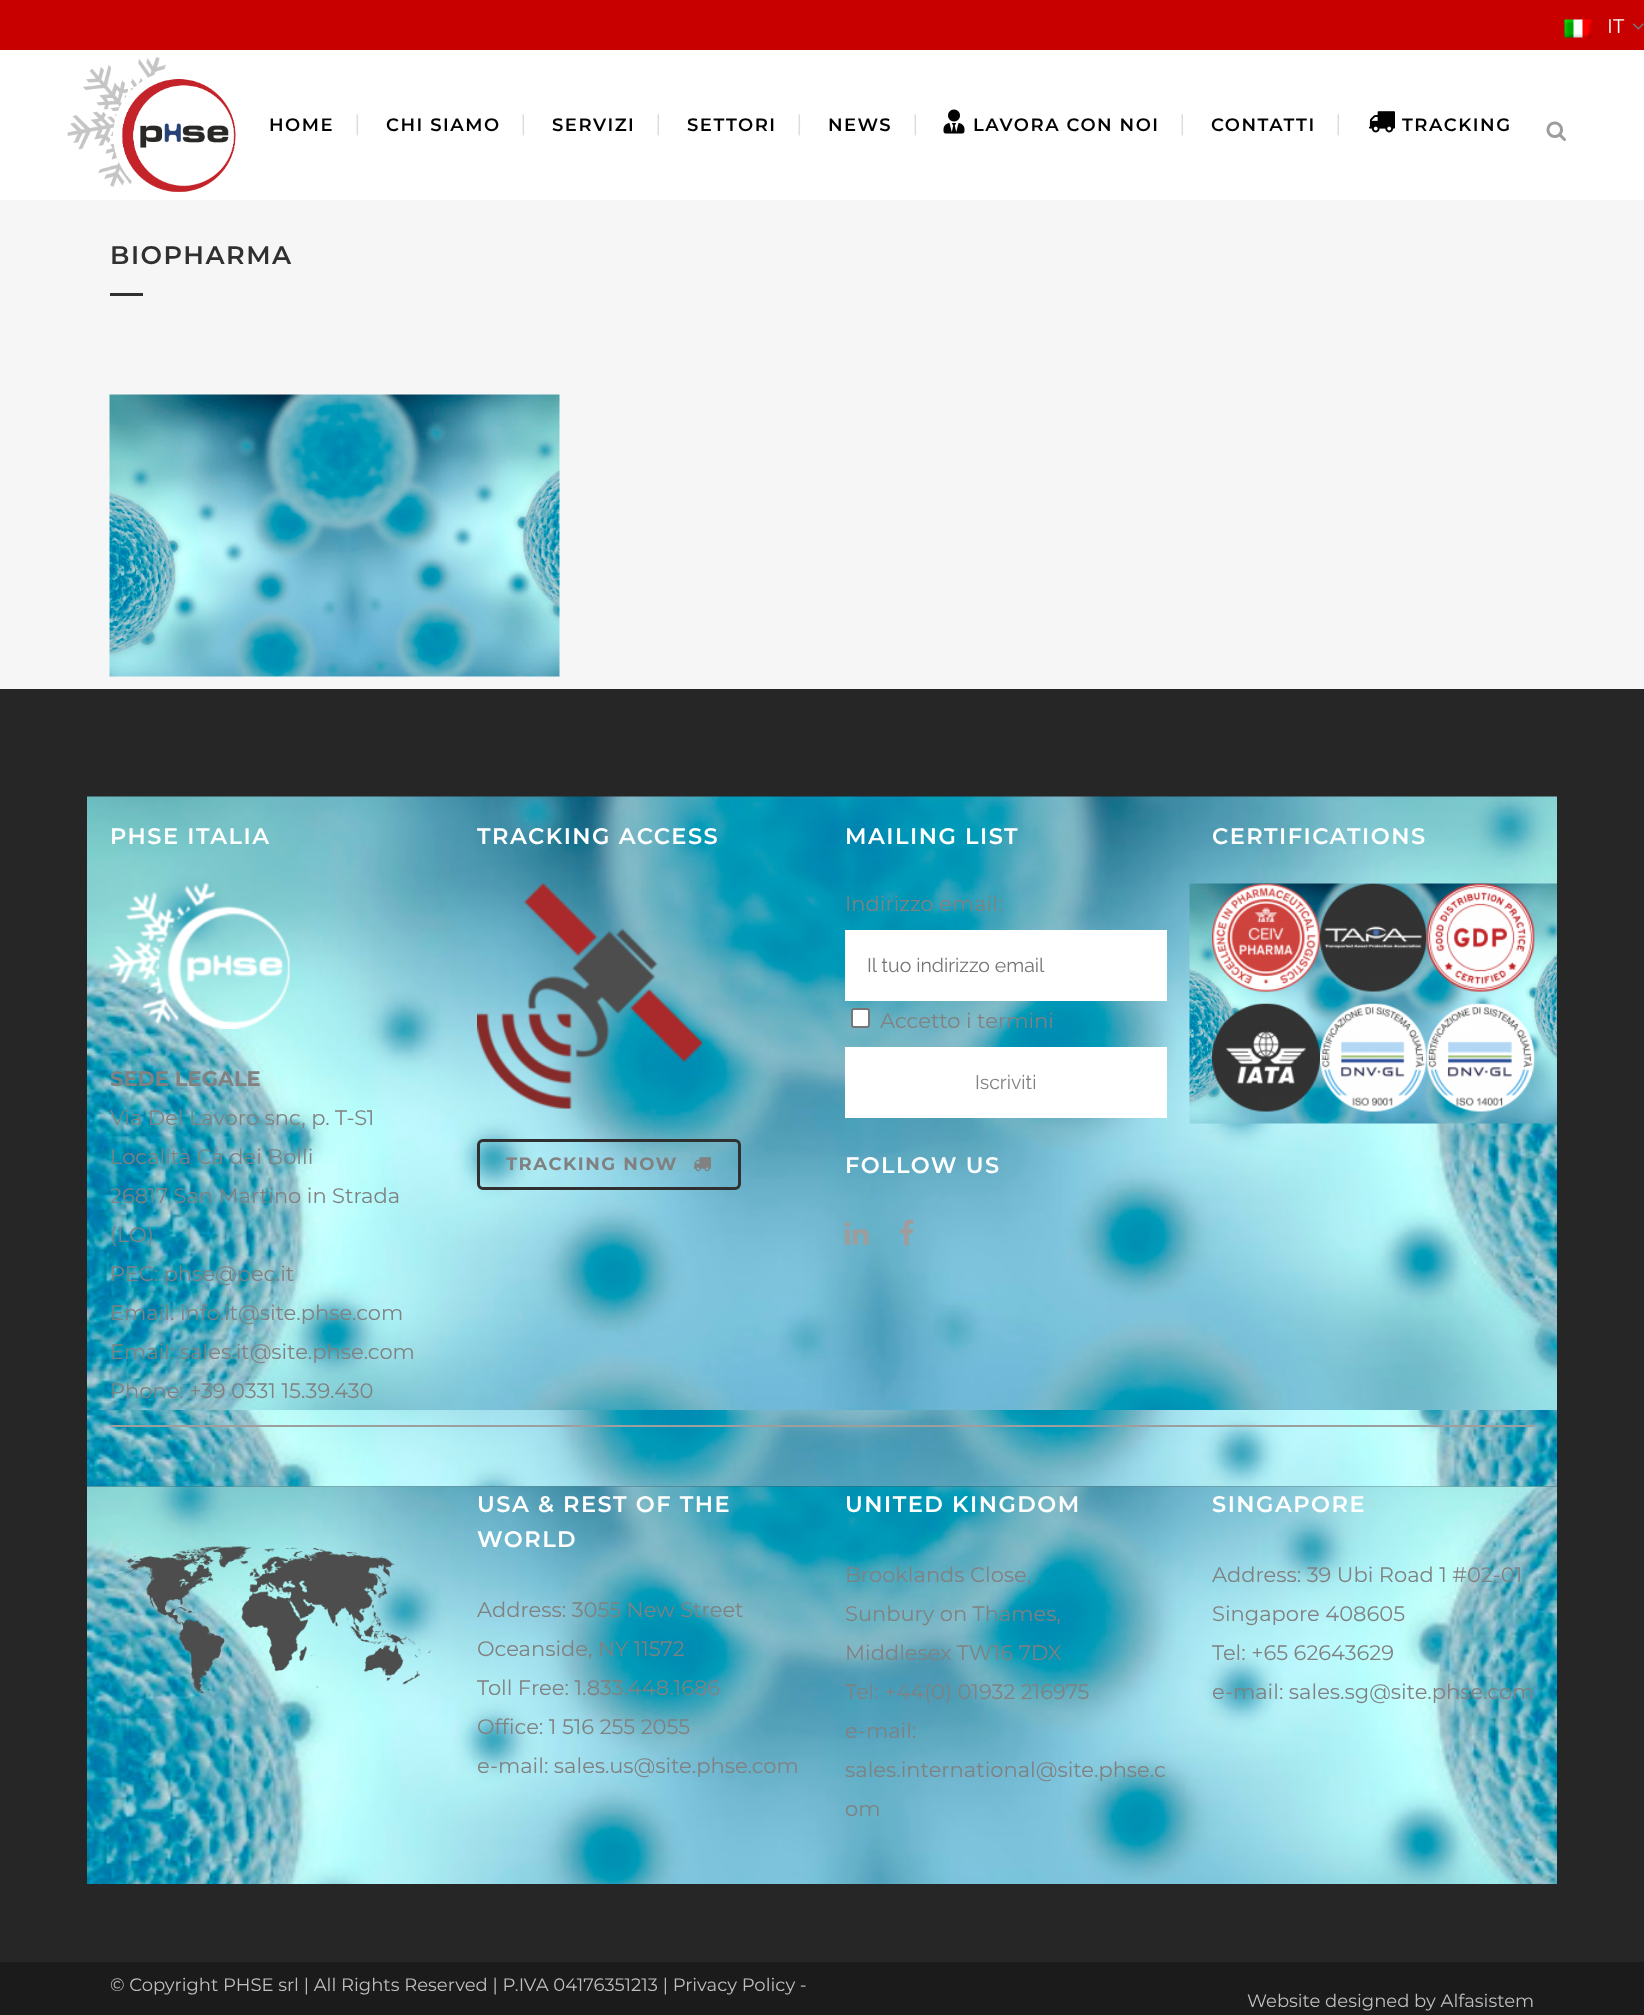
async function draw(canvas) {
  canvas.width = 1644;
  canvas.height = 2015;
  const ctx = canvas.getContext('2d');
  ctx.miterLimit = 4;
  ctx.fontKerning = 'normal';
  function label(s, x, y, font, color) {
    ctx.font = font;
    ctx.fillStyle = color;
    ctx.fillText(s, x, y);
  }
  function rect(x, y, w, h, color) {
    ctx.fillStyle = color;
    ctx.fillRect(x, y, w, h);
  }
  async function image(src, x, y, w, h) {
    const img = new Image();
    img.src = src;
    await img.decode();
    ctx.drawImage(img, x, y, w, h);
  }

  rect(0, 0, 1644, 2015, '#f6f6f6');
  rect(0, 0, 1644, 50, '#c90000');
  await image('assets/img1.png', 1564, 19, 28, 19);
  label('IT', 1607, 33, '19.5px Montserrat', '#fff');
  await image('assets/img2.png', 1632, 23, 12, 7);
  rect(0, 50, 1644, 150, '#fff');
  await image('assets/img3.png', 67, 57, 169, 135);
  ctx.letterSpacing = '1.5px';
  label('HOME', 269, 131, '600 18px Montserrat', '#020202');
  ctx.letterSpacing = '0px';
  label('|', 354, 131, '22.5px Montserrat', '#ddd');
  ctx.letterSpacing = '1.5px';
  label('CHI SIAMO', 386, 131, '600 18px Montserrat', '#020202');
  ctx.letterSpacing = '0px';
  label('|', 520, 131, '22.5px Montserrat', '#ddd');
  ctx.letterSpacing = '1.5px';
  label('SERVIZI', 552, 131, '600 18px Montserrat', '#020202');
  ctx.letterSpacing = '0px';
  label('|', 655, 131, '22.5px Montserrat', '#ddd');
  ctx.letterSpacing = '1.5px';
  label('SETTORI', 687, 131, '600 18px Montserrat', '#020202');
  ctx.letterSpacing = '0px';
  label('|', 796, 131, '22.5px Montserrat', '#ddd');
  ctx.letterSpacing = '1.5px';
  label('NEWS', 828, 131, '600 18px Montserrat', '#020202');
  ctx.letterSpacing = '0px';
  label('|', 912, 131, '22.5px Montserrat', '#ddd');
  await image('assets/img4.png', 943, 109, 22, 25);
  ctx.letterSpacing = '1.5px';
  label('LAVORA CON NOI', 973, 131, '600 18px Montserrat', '#020202');
  ctx.letterSpacing = '0px';
  label('|', 1179, 131, '22.5px Montserrat', '#ddd');
  ctx.letterSpacing = '1.5px';
  label('CONTATTI', 1211, 131, '600 18px Montserrat', '#020202');
  ctx.letterSpacing = '0px';
  label('|', 1335, 131, '22.5px Montserrat', '#ddd');
  await image('assets/img5.png', 1369, 111, 26, 22);
  ctx.letterSpacing = '1.5px';
  label('TRACKING', 1402, 131, '600 18px Montserrat', '#020202');
  await image('assets/img6.png', 1546, 121, 20, 20);
  label('BIOPHARMA', 110, 264, '600 25.5px Montserrat', '#303030');
  rect(110, 293, 33, 3, '#303030');
  await image('assets/img7.png', 109, 394, 451, 283);
  rect(0, 689, 1644, 1273, '#262626');
  await image('assets/img8.png', 87, 796, 1470, 614);
  label('PHSE ITALIA', 110, 844, '600 22.5px Montserrat', '#fff');
  await image('assets/img9.png', 109, 883, 181, 146);
  ctx.letterSpacing = '0px';
  label('SEDE LEGALE', 110, 1086, 'bold 21px Montserrat', '#818181');
  label('Via Del Lavoro snc, p. T-S1', 110, 1125, '21px Montserrat', '#818181');
  label('Località Cà dei Bolli', 110, 1164, '21px Montserrat', '#818181');
  label('26817 San Martino in Strada', 110, 1203, '21px Montserrat', '#818181');
  label('(LO)', 110, 1242, '21px Montserrat', '#818181');
  label('PEC: phse@pec.it', 110, 1281, '21px Montserrat', '#818181');
  label('Email: info.it@site.phse.com', 110, 1320, '21px Montserrat', '#818181');
  label('Email: sales.it@site.phse.com', 110, 1359, '21px Montserrat', '#818181');
  label('Phone: +39 0331 15.39.430', 110, 1398, '21px Montserrat', '#818181');
  ctx.letterSpacing = '1.5px';
  label('TRACKING ACCESS', 477, 844, '600 22.5px Montserrat', '#fff');
  await image('assets/img10.png', 477, 883, 225, 226);
  ctx.beginPath();
  ctx.roundRect(478.5, 1140.5, 261, 48, 4.5);
  ctx.strokeStyle = '#303030';
  ctx.lineWidth = 3;
  ctx.stroke();
  label('TRACKING NOW', 506, 1170, 'bold 18px Montserrat', '#818181');
  await image('assets/img11.png', 693, 1157, 18, 15);
  label('MAILING LIST', 845, 844, '600 22.5px Montserrat', '#fff');
  ctx.letterSpacing = '0px';
  label('Indirizzo email:', 845, 911, '21px Montserrat', '#818181');
  rect(845, 930, 322, 71, '#fff');
  label('Il tuo indirizzo email', 867, 972, '19.5px Raleway', '#757575');
  ctx.fillStyle = '#fff';
  ctx.beginPath();
  ctx.roundRect(852, 1009, 17, 18, 2);
  ctx.fill();
  ctx.strokeStyle = '#767676';
  ctx.lineWidth = 2;
  ctx.stroke();
  label('Accetto i termini', 880, 1028, '21px Montserrat', '#818181');
  rect(845, 1047, 322, 71, '#fff');
  label('Iscriviti', 975, 1089, '19.5px Raleway', '#818181');
  ctx.letterSpacing = '1.5px';
  label('FOLLOW US', 845, 1173, '600 22.5px Montserrat', '#fff');
  await image('assets/img12.png', 844, 1221, 25, 24);
  await image('assets/img13.png', 900, 1219, 14, 27);
  label('CERTIFICATIONS', 1212, 844, '600 22.5px Montserrat', '#fff');
  await image('assets/img14.png', 1189, 883, 368, 241);
  await image('assets/img15.png', 1212, 883, 108, 109);
  await image('assets/img16.png', 1320, 883, 107, 109);
  await image('assets/img17.png', 1426, 883, 109, 109);
  await image('assets/img18.png', 1212, 1003, 108, 109);
  await image('assets/img19.png', 1320, 1003, 107, 109);
  await image('assets/img20.png', 1426, 1003, 109, 109);
  await image('assets/img21.png', 87, 1410, 1470, 77);
  rect(110, 1425, 1425, 2, '#9e9e9e');
  await image('assets/img22.png', 87, 1486, 1470, 398);
  await image('assets/img23.png', 110, 1546, 322, 148);
  label('USA & REST OF THE', 477, 1512, '600 22.5px Montserrat', '#fff');
  label('WORLD', 477, 1547, '600 22.5px Montserrat', '#fff');
  ctx.letterSpacing = '0px';
  label('Address: 3055 New Street', 477, 1617, '21px Montserrat', '#818181');
  label('Oceanside, NY 11572', 477, 1656, '21px Montserrat', '#818181');
  label('Toll Free: 1.833.448.1686', 477, 1695, '21px Montserrat', '#818181');
  label('Office: 1 516 255 2055', 477, 1734, '21px Montserrat', '#818181');
  label('e-mail: sales.us@site.phse.com', 477, 1773, '21px Montserrat', '#818181');
  ctx.letterSpacing = '1.5px';
  label('UNITED KINGDOM', 845, 1512, '600 22.5px Montserrat', '#fff');
  ctx.letterSpacing = '0px';
  label('Brooklands Close,', 845, 1582, '21px Montserrat', '#818181');
  label('Sunbury on Thames,', 845, 1621, '21px Montserrat', '#818181');
  label('Middlesex TW16 7DX', 845, 1660, '21px Montserrat', '#818181');
  label('Tel: +44(0) 01932 216975', 845, 1699, '21px Montserrat', '#818181');
  label('e-mail:', 845, 1738, '21px Montserrat', '#818181');
  label('sales.international@site.phse.c', 845, 1777, '21px Montserrat', '#818181');
  label('om', 845, 1816, '21px Montserrat', '#818181');
  ctx.letterSpacing = '1.5px';
  label('SINGAPORE', 1212, 1512, '600 22.5px Montserrat', '#fff');
  ctx.letterSpacing = '0px';
  label('Address: 39 Ubi Road 1 #02-01', 1212, 1582, '21px Montserrat', '#818181');
  label('Singapore 408605', 1212, 1621, '21px Montserrat', '#818181');
  label('Tel: +65 62643629', 1212, 1660, '21px Montserrat', '#818181');
  label('e-mail: sales.sg@site.phse.com', 1212, 1699, '21px Montserrat', '#818181');
  rect(0, 1962, 1644, 53, '#1b1b1b');
  label('© Copyright PHSE srl | All Rights Reserved | P.IVA 04176351213 | Privacy Policy -', 110, 1991, '18px Montserrat', '#bfbfbf');
  label('Website designed by Alfasistem', 1247, 2007, '18px Montserrat', '#bfbfbf');
}

draw(document.querySelector('canvas'));
